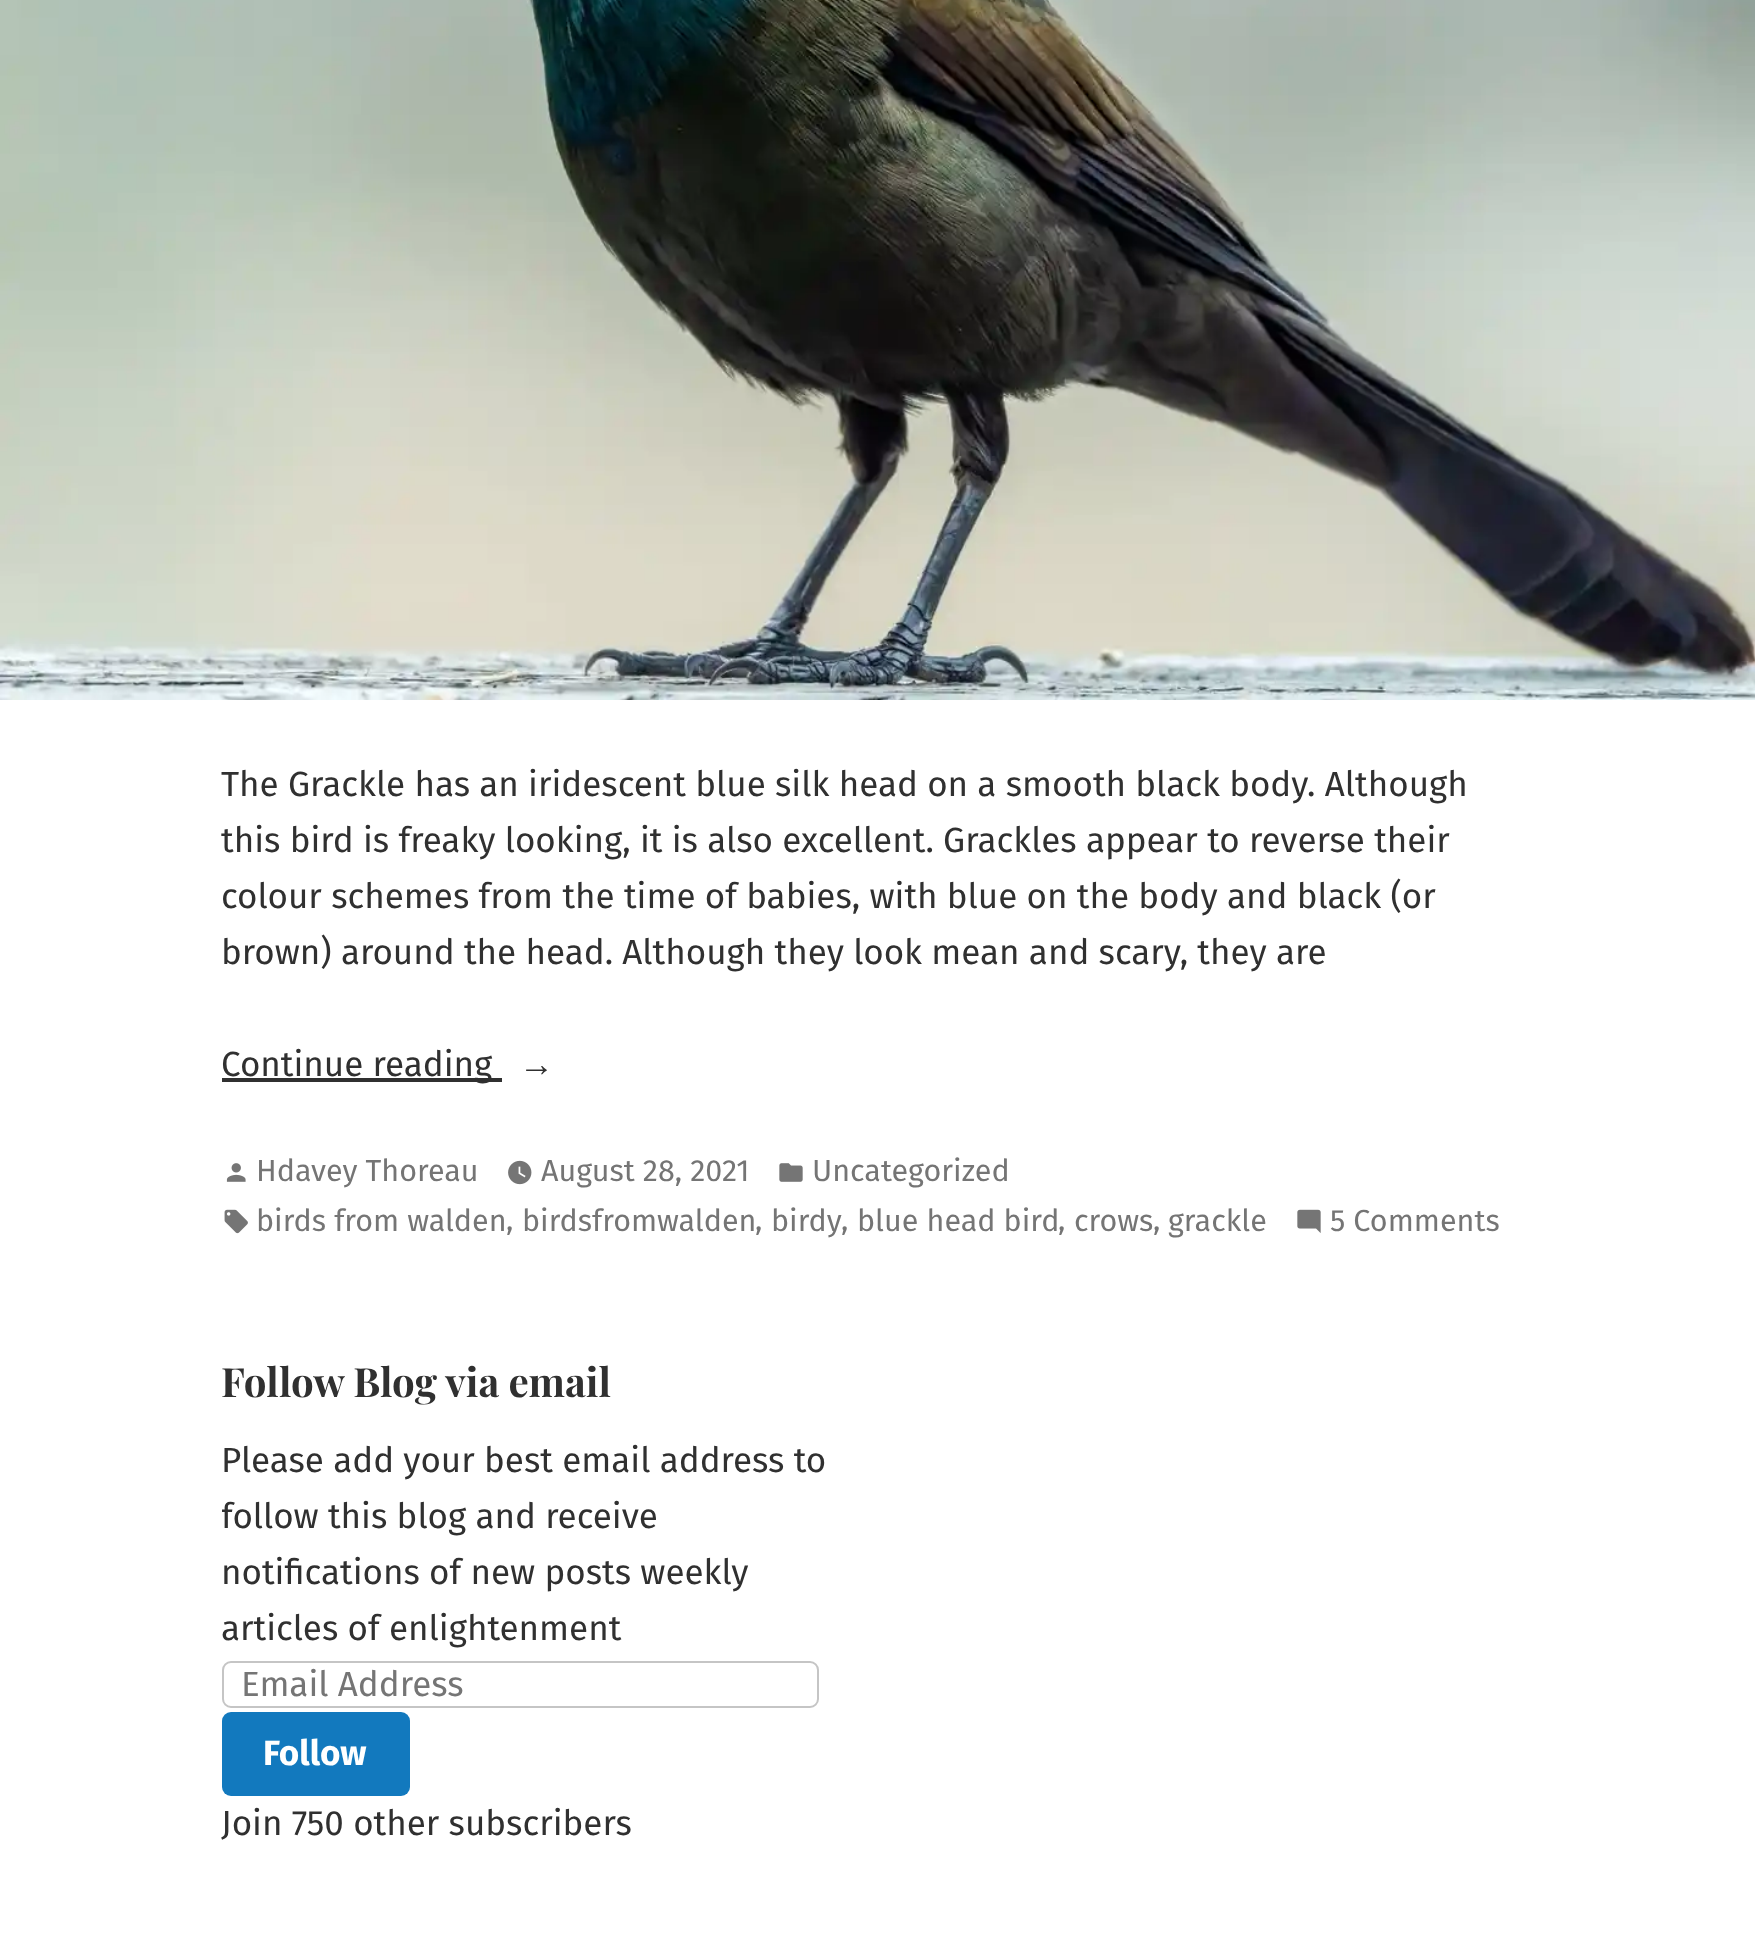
async function draw(canvas) {
  canvas.width = 1755;
  canvas.height = 1959;
  const ctx = canvas.getContext('2d');
  ctx.miterLimit = 4;
  ctx.fontKerning = 'normal';
  function label(s, x, y, font, color) {
    ctx.font = font;
    ctx.fillStyle = color;
    ctx.fillText(s, x, y);
  }
  function rect(x, y, w, h, color) {
    ctx.fillStyle = color;
    ctx.fillRect(x, y, w, h);
  }
  function roundedRect(x, y, w, h, r, color) {
    ctx.fillStyle = color;
    ctx.beginPath();
    ctx.roundRect(x, y, w, h, r);
    ctx.fill();
  }
  async function image(src, x, y, w, h) {
    const img = new Image();
    img.src = src;
    await img.decode();
    ctx.drawImage(img, x, y, w, h);
  }

  rect(0, 0, 1755, 1959, '#fff');
  await image('assets/img1.png', 0, 0, 1755, 700);
  label('The Grackle has an iridescent blue silk head on a smooth black body. Although', 221, 796, '35px Fira Sans', '#303030');
  label('this bird is freaky looking, it is also excellent. Grackles appear to reverse their', 221, 852, '35px Fira Sans', '#303030');
  label('colour schemes from the time of babies, with blue on the body and black (or', 221, 908, '35px Fira Sans', '#303030');
  label('brown) around the head. Although they look mean and scary, they are', 221, 964, '35px Fira Sans', '#303030');
  rect(222, 1078, 280, 4, '#303030');
  label('Continue reading', 221, 1076, '35px Fira Sans', '#303030');
  label('→', 519, 1076, '35px Liberation Serif', '#303030');
  await image('assets/img2.png', 226, 1163, 20, 19);
  label('Hdavey Thoreau', 256, 1181, '30.5px Fira Sans', '#757575');
  await image('assets/img3.png', 508, 1160, 24, 25);
  label('August 28, 2021', 541, 1181, '30.5px Fira Sans', '#757575');
  await image('assets/img4.png', 779, 1163, 24, 19);
  label('Uncategorized', 812, 1181, '30.5px Fira Sans', '#757575');
  await image('assets/img5.png', 224, 1209, 24, 25);
  label('birds from walden', 256, 1231, '30.5px Fira Sans', '#757575');
  label(',', 506, 1230, '30.5px Fira Sans', '#757575');
  label('birdsfromwalden', 522, 1231, '30.5px Fira Sans', '#757575');
  label(',', 755, 1230, '30.5px Fira Sans', '#757575');
  label('birdy', 771, 1231, '30.5px Fira Sans', '#757575');
  label(',', 841, 1230, '30.5px Fira Sans', '#757575');
  label('blue head bird', 857, 1231, '30.5px Fira Sans', '#757575');
  label(',', 1058, 1230, '30.5px Fira Sans', '#757575');
  label('crows', 1074, 1231, '30.5px Fira Sans', '#757575');
  label(',', 1153, 1230, '30.5px Fira Sans', '#757575');
  label('grackle', 1168, 1231, '30.5px Fira Sans', '#757575');
  await image('assets/img6.png', 1297, 1209, 24, 24);
  label('5 Comments', 1330, 1231, '30.5px Fira Sans', '#757575');
  label('Follow Blog via email', 221, 1397, 'bold 40.25px Playfair Display', '#303030');
  label('Please add your best email address to', 221, 1472, '35px Fira Sans', '#303030');
  ctx.save();
  ctx.beginPath();
  ctx.rect(222, 1302, 1313, 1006);
  ctx.clip();
  label('follow this blog and receive', 221, 1528, '35px Fira Sans', '#303030');
  ctx.restore();
  label('notifications of new posts weekly', 221, 1584, '35px Fira Sans', '#303030');
  label('articles of enlightenment', 221, 1640, '35px Fira Sans', '#303030');
  ctx.beginPath();
  ctx.roundRect(223, 1662, 595, 45, 8);
  ctx.strokeStyle = '#c5c5c5';
  ctx.lineWidth = 2;
  ctx.stroke();
  label('Email Address', 241, 1696, '35px Fira Sans', '#757575');
  roundedRect(222, 1712, 188, 84, 9, '#1279be');
  label('Follow', 263, 1765, 'bold 35px Fira Sans', '#fff');
  label('Join 750 other subscribers', 221, 1835, '35px Fira Sans', '#303030');
}

draw(document.querySelector('canvas'));
